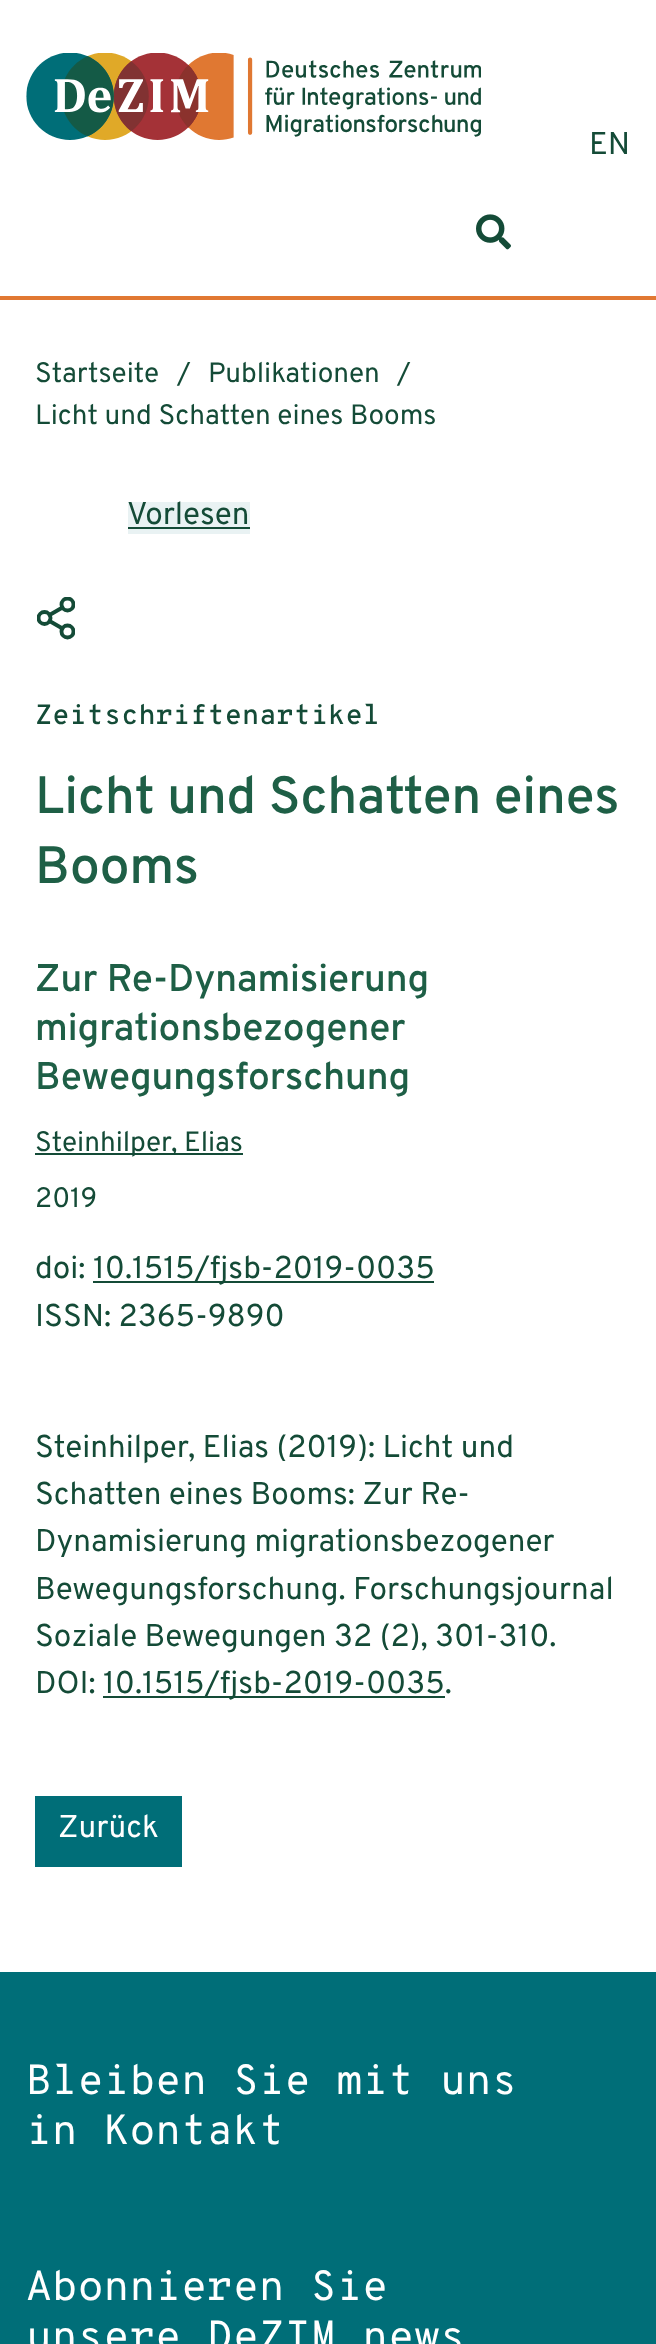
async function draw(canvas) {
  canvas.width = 656;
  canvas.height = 2344;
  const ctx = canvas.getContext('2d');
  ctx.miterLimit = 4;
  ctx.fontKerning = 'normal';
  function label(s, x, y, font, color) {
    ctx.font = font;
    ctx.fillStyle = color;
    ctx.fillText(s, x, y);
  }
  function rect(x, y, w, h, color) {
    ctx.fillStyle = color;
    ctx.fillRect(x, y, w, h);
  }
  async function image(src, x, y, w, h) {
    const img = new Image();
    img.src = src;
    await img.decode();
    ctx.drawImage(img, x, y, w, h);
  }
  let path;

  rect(0, 0, 656, 2344, '#fff');
  rect(0, 296, 656, 4, '#e17832');
  await image('assets/img1.png', 26, 53, 455, 87);
  label('EN', 589, 154, '31.5px Overpass', '#144b37');
  await image('assets/img2.png', 476, 214, 35, 36);
  label('Startseite', 35, 382, '28px Overpass', '#144b37');
  label('/', 177, 382, '28px Overpass', '#144b37');
  label('Publikationen', 208, 382, '28px Overpass', '#144b37');
  label('/', 397, 382, '28px Overpass', '#144b37');
  label('Licht und Schatten eines Booms', 35, 424, '28px Overpass', '#144b37');
  rect(128, 502, 122, 32, '#e9f2f3');
  label('Vorlesen', 127, 524, '31.5px Overpass', '#144b37');
  rect(128, 527, 122, 2, '#144b37');
  ctx.save();
  ctx.beginPath();
  ctx.rect(37, 597, 38, 44);
  ctx.clip();
  ctx.beginPath();
  ctx.arc(67.5, 604.5, 6, 0, 2 * Math.PI);
  ctx.strokeStyle = '#144b37';
  ctx.lineWidth = 3.9;
  ctx.stroke();
  ctx.beginPath();
  ctx.arc(44.5, 618, 6, 0, 2 * Math.PI);
  ctx.stroke();
  ctx.beginPath();
  ctx.arc(67.5, 631.5, 6, 0, 2 * Math.PI);
  ctx.stroke();
  ctx.restore();
  path = new Path2D('M49.5 621L62.5 628.5M62.5 607.5L49.5 615');
  ctx.strokeStyle = '#144b37';
  ctx.lineWidth = 3.9;
  ctx.lineCap = 'round';
  ctx.lineJoin = 'round';
  ctx.stroke(path);
  label('Zeitschriftenartikel', 35, 724, '600 28px Overpass Mono', '#144b37');
  label('Licht und Schatten eines', 35, 813, '600 52.5px Overpass', '#1e5f46');
  label('Booms', 35, 883, '600 52.5px Overpass', '#1e5f46');
  label('Zur Re-Dynamisierung', 35, 991, '600 38.5px Overpass', '#1e5f46');
  label('migrationsbezogener', 35, 1040, '600 38.5px Overpass', '#1e5f46');
  label('Bewegungsforschung', 35, 1089, '600 38.5px Overpass', '#1e5f46');
  rect(35, 1153, 208, 2, '#144b37');
  label('Steinhilper, Elias', 35, 1151, '28px Overpass', '#144b37');
  label('2019', 35, 1207, '28px Overpass', '#144b37');
  label('doi:', 35, 1278, '31.5px Overpass', '#144b37');
  rect(93, 1281, 341, 2, '#144b37');
  label('10.1515/fjsb-2019-0035', 93, 1278, '31.5px Overpass', '#144b37');
  label('ISSN: 2365-9890', 35, 1326, '31.5px Overpass', '#144b37');
  label('Steinhilper, Elias (2019): Licht und', 35, 1457, '31.5px Overpass', '#144b37');
  label('Schatten eines Booms: Zur Re-', 35, 1504, '31.5px Overpass', '#144b37');
  label('Dynamisierung migrationsbezogener', 35, 1551, '31.5px Overpass', '#144b37');
  label('Bewegungsforschung. Forschungsjournal', 35, 1599, '31.5px Overpass', '#144b37');
  label('Soziale Bewegungen 32 (2), 301-310.', 35, 1646, '31.5px Overpass', '#144b37');
  label('DOI:', 35, 1693, '31.5px Overpass', '#144b37');
  rect(103, 1696, 342, 2, '#144b37');
  label('10.1515/fjsb-2019-0035.', 103, 1693, '31.5px Overpass', '#144b37');
  rect(35, 1796, 147, 71, '#006e78');
  label('Zurück', 58, 1837, '31.5px Overpass', '#fff');
  rect(0, 1972, 656, 372, '#006e78');
  label('Bleiben Sie mit uns', 26, 2094, '42px Overpass Mono', '#fff');
  label('in Kontakt', 26, 2144, '42px Overpass Mono', '#fff');
  label('Abonnieren Sie', 26, 2300, '42px Overpass Mono', '#fff');
  label('unsere DeZIM.news', 26, 2350, '42px Overpass Mono', '#fff');
}

draw(document.querySelector('canvas'));
